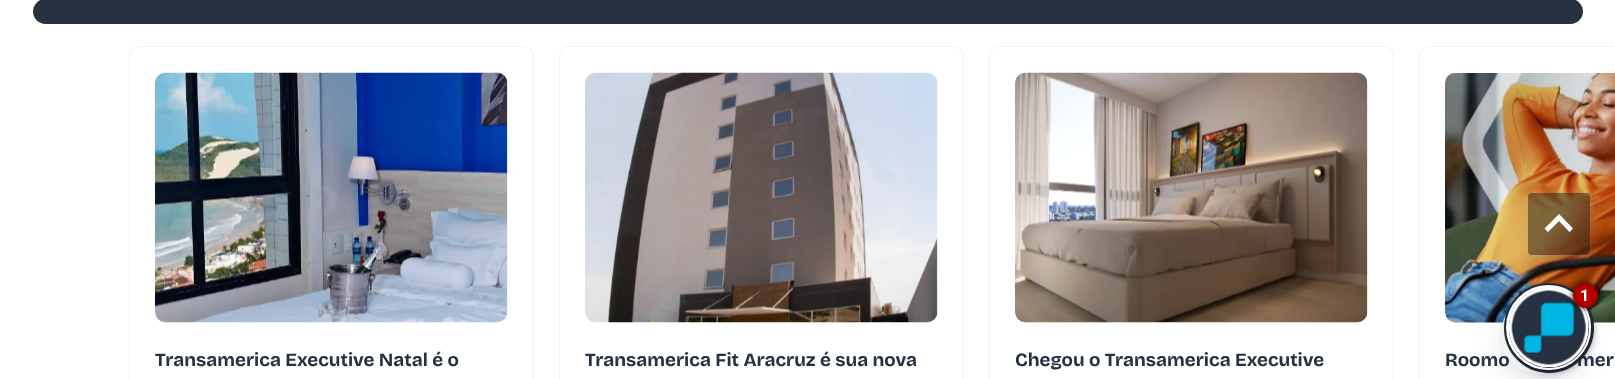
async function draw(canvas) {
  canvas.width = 1615;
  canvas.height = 379;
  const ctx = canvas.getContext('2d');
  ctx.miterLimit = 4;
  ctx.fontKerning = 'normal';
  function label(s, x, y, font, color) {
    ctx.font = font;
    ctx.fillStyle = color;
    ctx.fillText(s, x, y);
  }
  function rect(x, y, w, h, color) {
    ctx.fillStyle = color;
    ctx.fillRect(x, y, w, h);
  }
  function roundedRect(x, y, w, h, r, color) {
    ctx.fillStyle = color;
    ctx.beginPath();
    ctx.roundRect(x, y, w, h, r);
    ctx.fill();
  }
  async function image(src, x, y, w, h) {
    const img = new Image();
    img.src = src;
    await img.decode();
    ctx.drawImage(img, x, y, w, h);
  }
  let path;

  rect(0, 0, 1615, 379, '#fff');
  ctx.beginPath();
  ctx.roundRect(1419.5, 46.5, 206, 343, 9.5);
  ctx.strokeStyle = '#f2f2f2';
  ctx.stroke();
  await image('assets/img5.png', 1445, 73, 170, 250);
  ctx.fillStyle = '#0000001a';
  ctx.filter = 'blur(15.5px)';
  ctx.beginPath();
  ctx.roundRect(1501, 306, 80, 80, 40);
  ctx.fill();
  ctx.filter = 'none';
  label('Roomo', 1445, 366, 'bold 18.75px Bricolage Grotesque', '#263142');
  label('mer', 1577, 366, 'bold 18.75px Bricolage Grotesque', '#263142');
  ctx.fillStyle = '#fff';
  ctx.beginPath();
  ctx.arc(1541, 334, 40, 0, 2 * Math.PI);
  ctx.fill();
  ctx.beginPath();
  ctx.arc(1549, 328, 43.5, 0, 2 * Math.PI);
  ctx.strokeStyle = '#263242';
  ctx.lineWidth = 3;
  ctx.stroke();
  ctx.fillStyle = '#000';
  ctx.filter = 'blur(6px)';
  ctx.beginPath();
  ctx.roundRect(1511, 290, 78, 78, 39);
  ctx.fill();
  ctx.filter = 'none';
  ctx.beginPath();
  ctx.arc(1548.5, 327.5, 41, 0, 2 * Math.PI);
  ctx.strokeStyle = '#fff';
  ctx.stroke();
  ctx.beginPath();
  ctx.arc(1549, 328, 40, 0, 2 * Math.PI);
  ctx.fill();
  await image('assets/img1.png', 1509, 288, 80, 80);
  ctx.filter = 'blur(3px)';
  ctx.beginPath();
  ctx.roundRect(1573, 283, 25, 25, 12.5);
  ctx.fill();
  ctx.filter = 'none';
  ctx.fillStyle = '#b60000';
  ctx.beginPath();
  ctx.arc(1585.5, 295.5, 11, 0, 2 * Math.PI);
  ctx.fill();
  ctx.strokeStyle = '#a30000';
  ctx.stroke();
  label('1', 1580, 301, 'bold 16px Roboto', '#fff');
  roundedRect(33, -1, 1550, 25, 12.5, '#263142');
  roundedRect(1528, 193, 62, 62, 4, '#22222280');
  ctx.save();
  path = new Path2D('M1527 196H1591V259H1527ZM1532 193H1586C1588 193 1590 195 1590 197V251C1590 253 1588 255 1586 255H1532C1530 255 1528 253 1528 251V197C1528 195 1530 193 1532 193Z');
  ctx.clip(path, 'evenodd');
  ctx.fillStyle = '#9e9e9e1f';
  ctx.filter = 'blur(0.5px)';
  ctx.beginPath();
  ctx.roundRect(1530, 199, 58, 57, 1);
  ctx.fill();
  ctx.filter = 'none';
  ctx.restore();
  ctx.save();
  path = new Path2D('M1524 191H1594V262H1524ZM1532 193H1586C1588 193 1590 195 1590 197V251C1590 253 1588 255 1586 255H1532C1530 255 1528 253 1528 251V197C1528 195 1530 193 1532 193Z');
  ctx.clip(path, 'evenodd');
  ctx.fillStyle = '#9e9e9e24';
  ctx.filter = 'blur(1px)';
  ctx.beginPath();
  ctx.roundRect(1528, 195, 62, 63, 4);
  ctx.fill();
  ctx.filter = 'none';
  ctx.restore();
  ctx.save();
  path = new Path2D('M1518 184H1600V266H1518ZM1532 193H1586C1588 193 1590 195 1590 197V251C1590 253 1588 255 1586 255H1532C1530 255 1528 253 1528 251V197C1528 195 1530 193 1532 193Z');
  ctx.clip(path, 'evenodd');
  ctx.fillStyle = '#9e9e9e33';
  ctx.filter = 'blur(3px)';
  ctx.beginPath();
  ctx.roundRect(1528, 194, 62, 62, 4);
  ctx.fill();
  ctx.filter = 'none';
  ctx.restore();
  ctx.fillStyle = '#fff';
  path = new Path2D('M1559 214L1544.5 228.5L1548 232L1559 221L1569.5 232L1573 228.5Z');
  ctx.fill(path);
  ctx.beginPath();
  ctx.roundRect(129.5, 46.5, 404, 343, 9.5);
  ctx.strokeStyle = '#f2f2f2';
  ctx.lineWidth = 1;
  ctx.stroke();
  await image('assets/img2.png', 155, 72, 353, 251);
  label('Transamerica Executive Natal é o', 155, 366, 'bold 18.75px Bricolage Grotesque', '#263142');
  ctx.beginPath();
  ctx.roundRect(559.5, 46.5, 404, 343, 9.5);
  ctx.stroke();
  await image('assets/img3.png', 585, 72, 353, 251);
  label('Transamerica Fit Aracruz é sua nova', 585, 366, 'bold 18.75px Bricolage Grotesque', '#263142');
  ctx.beginPath();
  ctx.roundRect(989.5, 46.5, 404, 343, 9.5);
  ctx.stroke();
  await image('assets/img4.png', 1015, 72, 353, 251);
  label('Chegou o Transamerica Executive', 1015, 366, 'bold 18.75px Bricolage Grotesque', '#263142');
}

draw(document.querySelector('canvas'));
